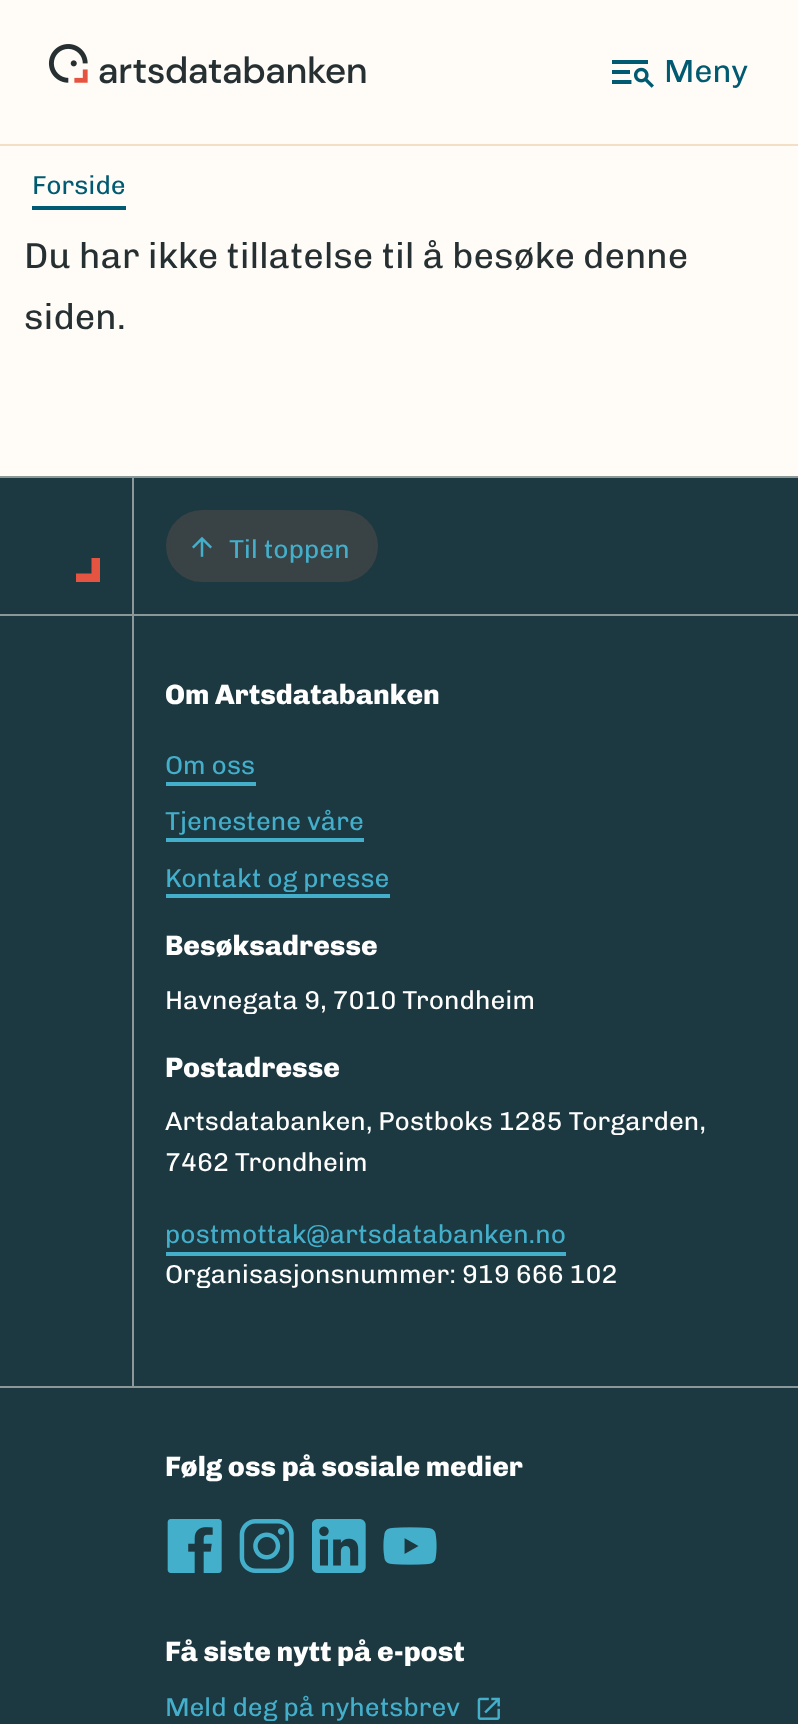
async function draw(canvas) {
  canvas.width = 798;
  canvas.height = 1724;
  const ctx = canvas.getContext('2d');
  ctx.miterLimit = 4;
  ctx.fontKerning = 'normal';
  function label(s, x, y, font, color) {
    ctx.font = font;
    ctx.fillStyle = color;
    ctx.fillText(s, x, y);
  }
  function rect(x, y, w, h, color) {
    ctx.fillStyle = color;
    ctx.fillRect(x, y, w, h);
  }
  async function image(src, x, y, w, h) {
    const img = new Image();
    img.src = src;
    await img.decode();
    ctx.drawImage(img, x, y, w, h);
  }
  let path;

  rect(0, 0, 798, 1724, '#fffcf7');
  rect(0, 144, 798, 2, '#f2dfc5');
  await image('assets/img1.png', 48, 44, 318, 40);
  await image('assets/img2.png', 612, 60, 42, 28);
  label('Meny', 664, 82, '32px Chivo', '#005a71');
  label('Forside', 32, 194, '26px Chivo', '#005a71');
  rect(32, 206, 94, 4, '#005a71');
  label('Du har ikke tillatelse til å besøke denne', 24, 268, '36px Chivo', '#262f31');
  label('siden.', 24, 329, '36px Chivo', '#262f31');
  rect(0, 478, 798, 1246, '#1c3840');
  rect(0, 614, 798, 2, '#8c9799');
  rect(0, 476, 798, 2, '#8c9799');
  rect(132, 476, 2, 910, '#8c9799');
  ctx.fillStyle = '#394244';
  ctx.beginPath();
  ctx.roundRect(168, 512, 208, 68, 34);
  ctx.fill();
  ctx.strokeStyle = '#394244';
  ctx.lineWidth = 4;
  ctx.stroke();
  await image('assets/img3.png', 192, 536, 20, 21);
  label('Til toppen', 229, 558, '26px Chivo', '#44afcb');
  ctx.fillStyle = '#e55440';
  path = new Path2D('M91.5 558V573.5H76V582H100V558Z');
  ctx.fill(path);
  label('Om Artsdatabanken', 165, 704, '800 28px Chivo', '#fff');
  label('Om oss', 165, 774, '26px Chivo', '#44afcb');
  rect(166, 782, 90, 4, '#44afcb');
  label('Tjenestene våre', 165, 830, '26px Chivo', '#44afcb');
  rect(166, 838, 198, 4, '#44afcb');
  label('Kontakt og presse', 165, 887, '26px Chivo', '#44afcb');
  rect(166, 894, 224, 4, '#44afcb');
  label('Besøksadresse', 165, 955, '800 28px Chivo', '#fff');
  label('Havnegata 9, 7010 Trondheim', 165, 1009, '26px Chivo', '#fff');
  label('Postadresse', 165, 1077, '800 28px Chivo', '#fff');
  label('Artsdatabanken, Postboks 1285 Torgarden,', 165, 1130, '26px Chivo', '#fff');
  label('7462 Trondheim', 165, 1171, '26px Chivo', '#fff');
  label('postmottak@artsdatabanken.no', 165, 1243, '26px Chivo', '#44afcb');
  rect(166, 1252, 400, 4, '#44afcb');
  label('Organisasjonsnummer: 919 666 102', 165, 1283, '26px Chivo', '#fff');
  rect(0, 1386, 798, 2, '#8c9799');
  label('Følg oss på sosiale medier', 165, 1476, '800 28px Chivo', '#fff');
  await image('assets/img4.png', 167, 1519, 55, 54);
  await image('assets/img5.png', 239, 1519, 55, 54);
  await image('assets/img6.png', 312, 1519, 54, 54);
  await image('assets/img7.png', 383, 1527, 54, 38);
  label('Få siste nytt på e-post', 165, 1661, '800 28px Chivo', '#fff');
  label('Meld deg på nyhetsbrev', 165, 1716, '26px Chivo', '#44afcb');
  await image('assets/img8.png', 477, 1697, 23, 23);
}

draw(document.querySelector('canvas'));
